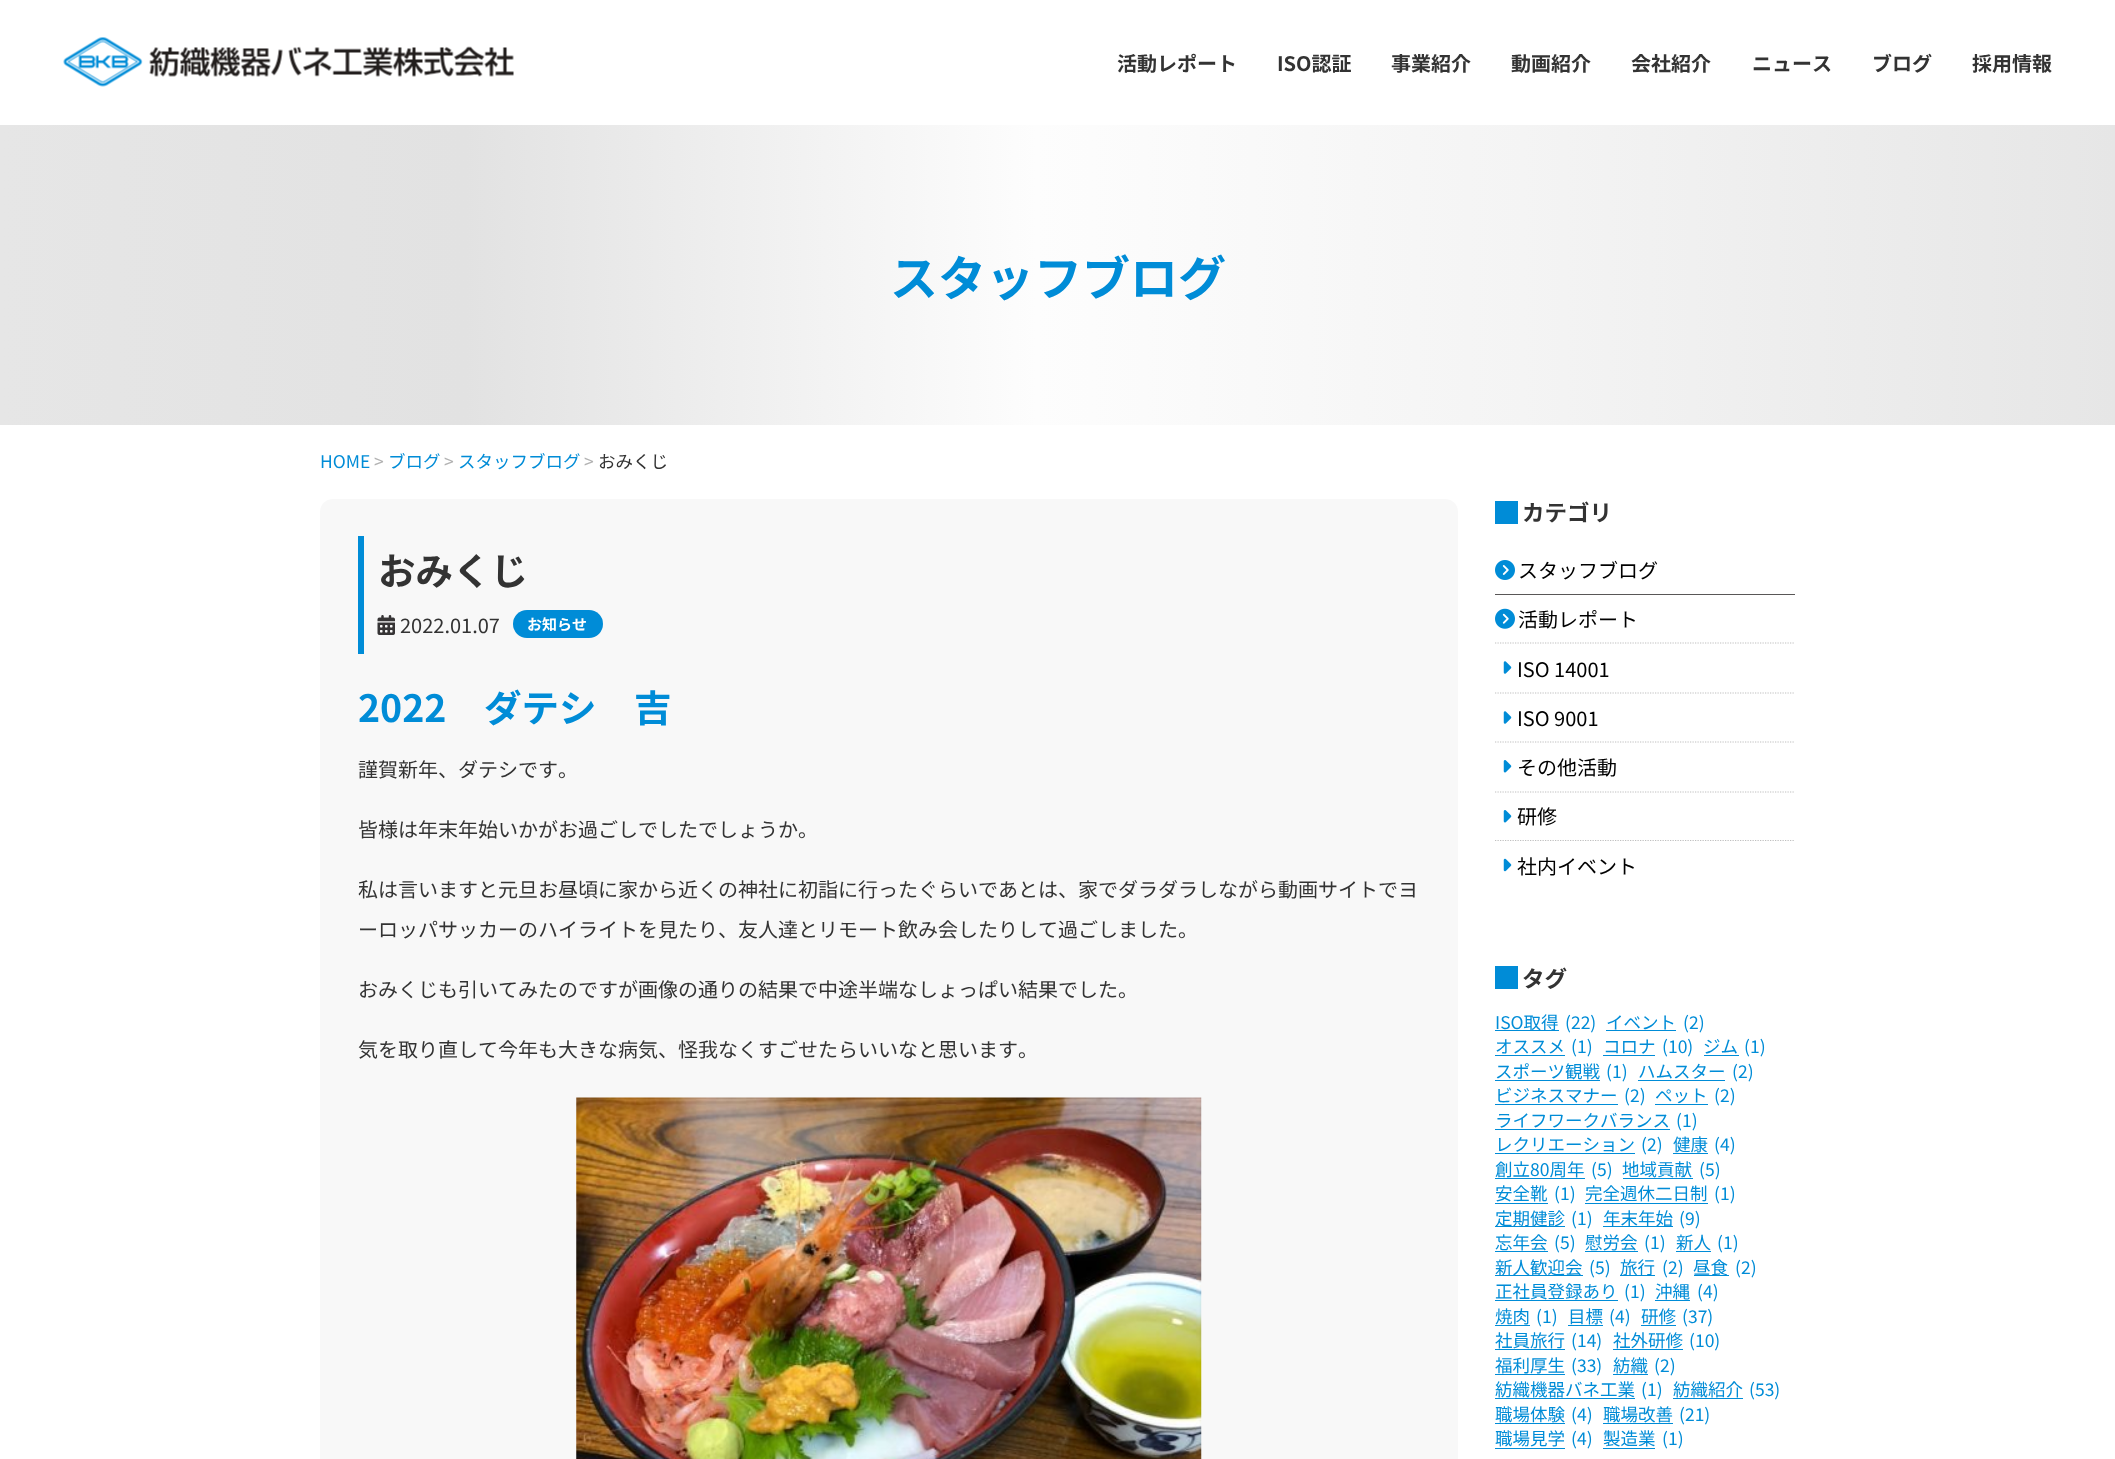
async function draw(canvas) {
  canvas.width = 2115;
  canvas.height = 1459;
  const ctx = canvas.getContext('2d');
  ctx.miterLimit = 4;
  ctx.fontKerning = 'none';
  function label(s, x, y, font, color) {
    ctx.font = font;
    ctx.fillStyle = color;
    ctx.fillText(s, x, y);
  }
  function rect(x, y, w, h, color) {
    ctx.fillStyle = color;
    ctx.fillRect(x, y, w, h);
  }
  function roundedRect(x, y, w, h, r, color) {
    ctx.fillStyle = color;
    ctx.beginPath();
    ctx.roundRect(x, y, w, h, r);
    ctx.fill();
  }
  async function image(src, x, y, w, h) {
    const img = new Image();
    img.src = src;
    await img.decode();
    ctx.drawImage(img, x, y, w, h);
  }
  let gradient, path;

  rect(0, 0, 2115, 1459, '#fff');
  await image('assets/img1.png', 63, 37, 451, 50);
  label('活動レポート', 1117, 71, 'bold 20px Noto Sans JP', '#333');
  label('ISO認証', 1277, 71, 'bold 20px Noto Sans JP', '#333');
  label('事業紹介', 1391, 71, 'bold 20px Noto Sans JP', '#333');
  label('動画紹介', 1511, 71, 'bold 20px Noto Sans JP', '#333');
  label('会社紹介', 1631, 71, 'bold 20px Noto Sans JP', '#333');
  label('ニュース', 1752, 71, 'bold 20px Noto Sans JP', '#333');
  label('ブログ', 1872, 71, 'bold 20px Noto Sans JP', '#333');
  label('採用情報', 1972, 71, 'bold 20px Noto Sans JP', '#333');
  gradient = ctx.createLinearGradient(0, 275, 2115, 275);
  gradient.addColorStop(0, '#e6e6e6');
  gradient.addColorStop(0.22, '#e2e2e2');
  gradient.addColorStop(0.49, '#fdfdfd');
  gradient.addColorStop(0.72, '#f4f4f4');
  gradient.addColorStop(1, '#e6e6e6');
  ctx.fillStyle = gradient;
  ctx.fillRect(0, 125, 2115, 300);
  label('スタッフブログ', 890, 296, 'bold 48px Noto Sans JP', '#008cd7');
  label('HOME', 320, 468, '17.5px Noto Sans JP', '#008cd7');
  label('>', 374, 468, '17.5px Noto Sans JP', '#b2b2b2');
  label('ブログ', 388, 468, '17.5px Noto Sans JP', '#008cd7');
  label('>', 444, 468, '17.5px Noto Sans JP', '#b2b2b2');
  label('スタッフブログ', 458, 468, '17.5px Noto Sans JP', '#008cd7');
  label('>', 584, 468, '17.5px Noto Sans JP', '#b2b2b2');
  label('おみくじ', 598, 468, '17.5px Noto Sans JP', '#333');
  roundedRect(320, 499, 1138, 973, 13, '#f8f8f8');
  rect(358, 536, 6, 118, '#008cd7');
  label('おみくじ', 378, 585, 'bold 37.5px Noto Sans JP', '#333');
  await image('assets/img2.png', 377, 615, 18, 20);
  label('2022.01.07', 400, 633, '20px Noto Sans JP', '#333');
  roundedRect(513, 610, 90, 28, 14, '#008cd7');
  label('お知らせ', 527, 630, 'bold 15px Noto Sans JP', '#fff');
  label('2022　ダテシ　吉', 358, 722, 'bold 37.5px Noto Sans JP', '#008cd7');
  label('謹賀新年、ダテシです。', 358, 777, '20px Noto Sans JP', '#333');
  label('皆様は年末年始いかがお過ごしでしたでしょうか。', 358, 837, '20px Noto Sans JP', '#333');
  label('私は言いますと元旦お昼頃に家から近くの神社に初詣に行ったぐらいであとは、家でダラダラしながら動画サイトでヨ', 358, 897, '20px Noto Sans JP', '#333');
  label('ーロッパサッカーのハイライトを見たり、友人達とリモート飲み会したりして過ごしました。', 358, 937, '20px Noto Sans JP', '#333');
  label('おみくじも引いてみたのですが画像の通りの結果で中途半端なしょっぱい結果でした。', 358, 997, '20px Noto Sans JP', '#333');
  label('気を取り直して今年も大きな病気、怪我なくすごせたらいいなと思います。', 358, 1057, '20px Noto Sans JP', '#333');
  await image('assets/img3.png', 576, 1097, 626, 362);
  rect(1495, 501, 23, 23, '#008cd7');
  label('カテゴリ', 1522, 521, 'bold 22.5px Noto Sans JP', '#333');
  await image('assets/img4.png', 1495, 560, 20, 20);
  label('スタッフブログ', 1518, 578, '20px Noto Sans JP', '#000');
  rect(1495, 594, 300, 1, '#595757');
  await image('assets/img5.png', 1495, 608, 20, 21);
  label('活動レポート', 1518, 627, '20px Noto Sans JP', '#000');
  path = new Path2D('M1495 643H1795');
  ctx.strokeStyle = '#bfbfbf';
  ctx.lineWidth = 1.2;
  ctx.setLineDash([1.25, 1.25]);
  ctx.stroke(path);
  await image('assets/img6.png', 1503, 661, 9, 13);
  label('ISO 14001', 1517, 677, '20px Noto Sans JP', '#000');
  path = new Path2D('M1495 693H1795');
  ctx.stroke(path);
  await image('assets/img6.png', 1503, 711, 9, 13);
  label('ISO 9001', 1517, 726, '20px Noto Sans JP', '#000');
  path = new Path2D('M1495 742H1795');
  ctx.stroke(path);
  await image('assets/img7.png', 1503, 760, 9, 13);
  label('その他活動', 1517, 775, '20px Noto Sans JP', '#000');
  path = new Path2D('M1495 792H1795');
  ctx.stroke(path);
  await image('assets/img7.png', 1503, 810, 9, 13);
  label('研修', 1517, 824, '20px Noto Sans JP', '#000');
  path = new Path2D('M1495 840.5H1795');
  ctx.stroke(path);
  await image('assets/img8.png', 1503, 858, 9, 14);
  label('社内イベント', 1517, 874, '20px Noto Sans JP', '#000');
  rect(1495, 966, 23, 23, '#008cd7');
  label('タグ', 1522, 987, 'bold 22.5px Noto Sans JP', '#333');
  rect(1495, 1030, 64, 1, '#008cd7');
  label('ISO取得', 1495, 1029, '17.5px Noto Sans JP', '#008cd7');
  label('(22)', 1565, 1029, '17.5px Noto Sans JP', '#008cd7');
  label('イベント', 1606, 1029, '17.5px Noto Sans JP', '#008cd7');
  rect(1606, 1030, 70, 1, '#008cd7');
  label('(2)', 1683, 1029, '17.5px Noto Sans JP', '#008cd7');
  label('オススメ', 1495, 1053, '17.5px Noto Sans JP', '#008cd7');
  rect(1495, 1055, 70, 1, '#008cd7');
  label('(1)', 1571, 1053, '17.5px Noto Sans JP', '#008cd7');
  label('コロナ', 1603, 1053, '17.5px Noto Sans JP', '#008cd7');
  rect(1603, 1055, 52, 1, '#008cd7');
  label('(10)', 1662, 1053, '17.5px Noto Sans JP', '#008cd7');
  label('ジム', 1703, 1053, '17.5px Noto Sans JP', '#008cd7');
  rect(1704, 1055, 35, 1, '#008cd7');
  label('(1)', 1744, 1053, '17.5px Noto Sans JP', '#008cd7');
  label('スポーツ観戦', 1495, 1078, '17.5px Noto Sans JP', '#008cd7');
  rect(1495, 1080, 105, 1, '#008cd7');
  label('(1)', 1606, 1078, '17.5px Noto Sans JP', '#008cd7');
  label('ハムスター', 1638, 1078, '17.5px Noto Sans JP', '#008cd7');
  rect(1638, 1080, 87, 1, '#008cd7');
  label('(2)', 1732, 1078, '17.5px Noto Sans JP', '#008cd7');
  label('ビジネスマナー', 1495, 1102, '17.5px Noto Sans JP', '#008cd7');
  rect(1495, 1104, 123, 1, '#008cd7');
  label('(2)', 1624, 1102, '17.5px Noto Sans JP', '#008cd7');
  label('ペット', 1655, 1102, '17.5px Noto Sans JP', '#008cd7');
  rect(1655, 1104, 53, 1, '#008cd7');
  label('(2)', 1714, 1102, '17.5px Noto Sans JP', '#008cd7');
  label('ライフワークバランス', 1495, 1127, '17.5px Noto Sans JP', '#008cd7');
  rect(1495, 1129, 175, 1, '#008cd7');
  label('(1)', 1676, 1127, '17.5px Noto Sans JP', '#008cd7');
  label('レクリエーション', 1495, 1151, '17.5px Noto Sans JP', '#008cd7');
  rect(1495, 1153, 140, 1, '#008cd7');
  label('(2)', 1641, 1151, '17.5px Noto Sans JP', '#008cd7');
  label('健康', 1673, 1151, '17.5px Noto Sans JP', '#008cd7');
  rect(1673, 1153, 35, 1, '#008cd7');
  label('(4)', 1714, 1151, '17.5px Noto Sans JP', '#008cd7');
  label('創立80周年', 1495, 1176, '17.5px Noto Sans JP', '#008cd7');
  rect(1495, 1178, 90, 1, '#008cd7');
  label('(5)', 1591, 1176, '17.5px Noto Sans JP', '#008cd7');
  label('地域貢献', 1622, 1176, '17.5px Noto Sans JP', '#008cd7');
  rect(1623, 1178, 70, 1, '#008cd7');
  label('(5)', 1699, 1176, '17.5px Noto Sans JP', '#008cd7');
  label('安全靴', 1495, 1200, '17.5px Noto Sans JP', '#008cd7');
  rect(1495, 1203, 53, 1, '#008cd7');
  label('(1)', 1554, 1200, '17.5px Noto Sans JP', '#008cd7');
  label('完全週休二日制', 1585, 1200, '17.5px Noto Sans JP', '#008cd7');
  rect(1585, 1203, 123, 1, '#008cd7');
  label('(1)', 1714, 1200, '17.5px Noto Sans JP', '#008cd7');
  rect(1495, 1226, 70, 1, '#008cd7');
  label('定期健診', 1495, 1225, '17.5px Noto Sans JP', '#008cd7');
  label('(1)', 1571, 1225, '17.5px Noto Sans JP', '#008cd7');
  rect(1603, 1226, 70, 1, '#008cd7');
  label('年末年始', 1603, 1225, '17.5px Noto Sans JP', '#008cd7');
  label('(9)', 1679, 1225, '17.5px Noto Sans JP', '#008cd7');
  label('忘年会', 1495, 1249, '17.5px Noto Sans JP', '#008cd7');
  rect(1495, 1251, 53, 1, '#008cd7');
  label('(5)', 1554, 1249, '17.5px Noto Sans JP', '#008cd7');
  label('慰労会', 1585, 1249, '17.5px Noto Sans JP', '#008cd7');
  rect(1585, 1251, 53, 1, '#008cd7');
  label('(1)', 1644, 1249, '17.5px Noto Sans JP', '#008cd7');
  label('新人', 1676, 1249, '17.5px Noto Sans JP', '#008cd7');
  rect(1676, 1251, 35, 1, '#008cd7');
  label('(1)', 1717, 1249, '17.5px Noto Sans JP', '#008cd7');
  rect(1495, 1275, 88, 1, '#008cd7');
  label('新人歓迎会', 1495, 1274, '17.5px Noto Sans JP', '#008cd7');
  label('(5)', 1589, 1274, '17.5px Noto Sans JP', '#008cd7');
  rect(1620, 1275, 35, 1, '#008cd7');
  label('旅行', 1620, 1274, '17.5px Noto Sans JP', '#008cd7');
  label('(2)', 1662, 1274, '17.5px Noto Sans JP', '#008cd7');
  rect(1694, 1275, 35, 1, '#008cd7');
  label('昼食', 1693, 1274, '17.5px Noto Sans JP', '#008cd7');
  label('(2)', 1735, 1274, '17.5px Noto Sans JP', '#008cd7');
  label('正社員登録あり', 1495, 1298, '17.5px Noto Sans JP', '#008cd7');
  rect(1495, 1300, 123, 1, '#008cd7');
  label('(1)', 1624, 1298, '17.5px Noto Sans JP', '#008cd7');
  label('沖縄', 1655, 1298, '17.5px Noto Sans JP', '#008cd7');
  rect(1655, 1300, 35, 1, '#008cd7');
  label('(4)', 1697, 1298, '17.5px Noto Sans JP', '#008cd7');
  label('焼肉', 1495, 1323, '17.5px Noto Sans JP', '#008cd7');
  rect(1495, 1325, 35, 1, '#008cd7');
  label('(1)', 1536, 1323, '17.5px Noto Sans JP', '#008cd7');
  label('目標', 1568, 1323, '17.5px Noto Sans JP', '#008cd7');
  rect(1568, 1325, 35, 1, '#008cd7');
  label('(4)', 1609, 1323, '17.5px Noto Sans JP', '#008cd7');
  label('研修', 1641, 1323, '17.5px Noto Sans JP', '#008cd7');
  rect(1641, 1325, 35, 1, '#008cd7');
  label('(37)', 1682, 1323, '17.5px Noto Sans JP', '#008cd7');
  label('社員旅行', 1495, 1347, '17.5px Noto Sans JP', '#008cd7');
  rect(1495, 1349, 70, 1, '#008cd7');
  label('(14)', 1571, 1347, '17.5px Noto Sans JP', '#008cd7');
  label('社外研修', 1613, 1347, '17.5px Noto Sans JP', '#008cd7');
  rect(1613, 1349, 70, 1, '#008cd7');
  label('(10)', 1689, 1347, '17.5px Noto Sans JP', '#008cd7');
  label('福利厚生', 1495, 1372, '17.5px Noto Sans JP', '#008cd7');
  rect(1495, 1374, 70, 1, '#008cd7');
  label('(33)', 1571, 1372, '17.5px Noto Sans JP', '#008cd7');
  label('紡織', 1613, 1372, '17.5px Noto Sans JP', '#008cd7');
  rect(1613, 1374, 35, 1, '#008cd7');
  label('(2)', 1654, 1372, '17.5px Noto Sans JP', '#008cd7');
  label('紡織機器バネ工業', 1495, 1396, '17.5px Noto Sans JP', '#008cd7');
  rect(1495, 1398, 140, 1, '#008cd7');
  label('(1)', 1641, 1396, '17.5px Noto Sans JP', '#008cd7');
  label('紡織紹介', 1673, 1396, '17.5px Noto Sans JP', '#008cd7');
  rect(1673, 1398, 70, 1, '#008cd7');
  label('(53)', 1749, 1396, '17.5px Noto Sans JP', '#008cd7');
  label('職場体験', 1495, 1421, '17.5px Noto Sans JP', '#008cd7');
  rect(1495, 1423, 70, 1, '#008cd7');
  label('(4)', 1571, 1421, '17.5px Noto Sans JP', '#008cd7');
  label('職場改善', 1603, 1421, '17.5px Noto Sans JP', '#008cd7');
  rect(1603, 1423, 70, 1, '#008cd7');
  label('(21)', 1679, 1421, '17.5px Noto Sans JP', '#008cd7');
  label('職場見学', 1495, 1445, '17.5px Noto Sans JP', '#008cd7');
  rect(1495, 1448, 70, 1, '#008cd7');
  label('(4)', 1571, 1445, '17.5px Noto Sans JP', '#008cd7');
  label('製造業', 1603, 1445, '17.5px Noto Sans JP', '#008cd7');
  rect(1603, 1448, 52, 1, '#008cd7');
  label('(1)', 1662, 1445, '17.5px Noto Sans JP', '#008cd7');
}

draw(document.querySelector('canvas'));
